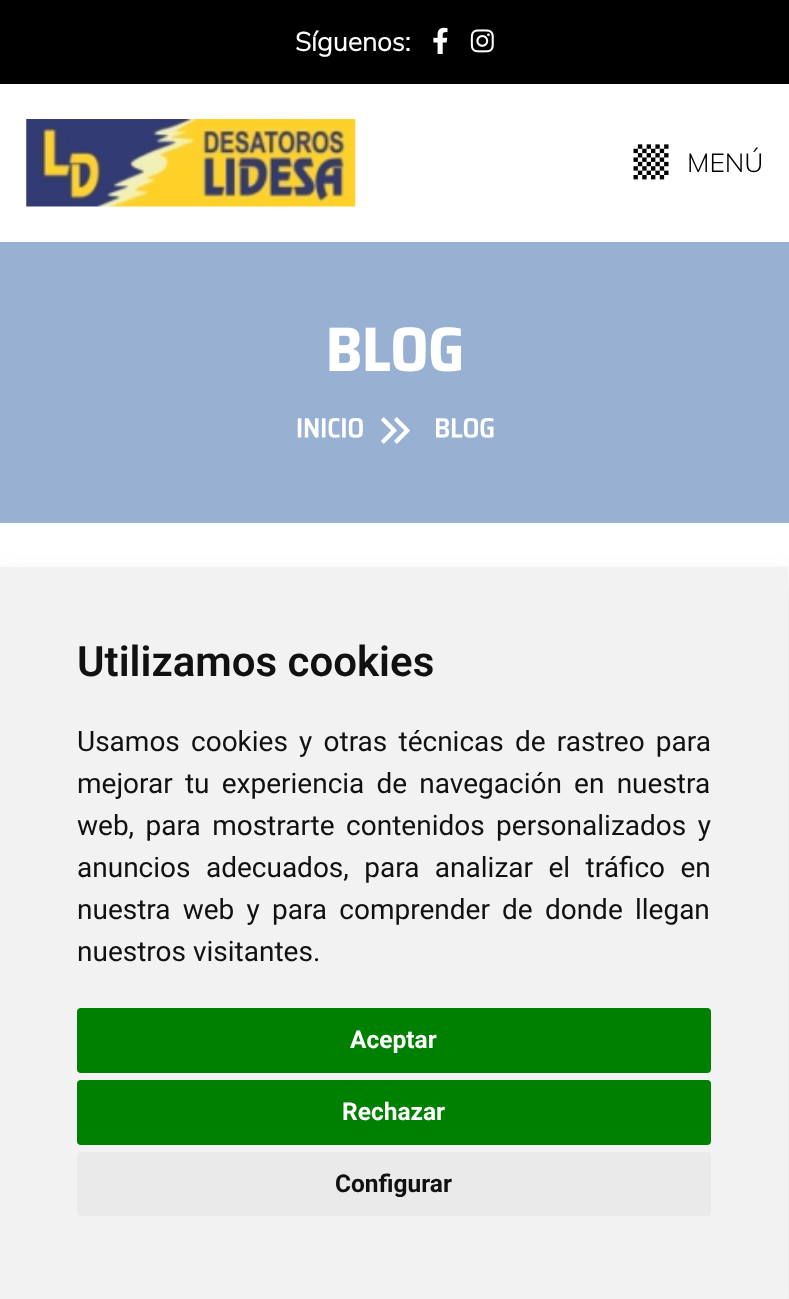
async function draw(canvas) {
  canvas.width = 789;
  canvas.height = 1299;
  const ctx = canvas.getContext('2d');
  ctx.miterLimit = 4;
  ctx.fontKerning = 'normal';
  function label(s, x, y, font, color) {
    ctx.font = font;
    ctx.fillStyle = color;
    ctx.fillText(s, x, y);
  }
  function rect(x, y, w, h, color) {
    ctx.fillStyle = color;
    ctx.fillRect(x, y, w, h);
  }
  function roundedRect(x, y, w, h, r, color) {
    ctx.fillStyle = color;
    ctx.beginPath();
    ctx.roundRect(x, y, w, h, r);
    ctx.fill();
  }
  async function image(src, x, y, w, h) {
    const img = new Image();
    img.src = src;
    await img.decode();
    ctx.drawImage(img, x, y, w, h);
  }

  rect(0, 0, 789, 1299, '#fff');
  rect(0, 0, 789, 84, '#000');
  label('Síguenos:', 295, 51, 'bold 26.25px Mulish', '#fff');
  await image('assets/img1.png', 433, 27, 15, 27);
  await image('assets/img2.png', 470, 29, 24, 24);
  await image('assets/img3.png', 26, 119, 330, 88);
  await image('assets/img4.png', 633, 144, 36, 36);
  label('MENÚ', 687, 172, '200 26.25px Mulish', '#000');
  rect(0, 242, 789, 281, '#98b1d2');
  await image('assets/img5.png', 329, 327, 132, 45);
  await image('assets/img6.png', 297, 418, 66, 20);
  await image('assets/img7.png', 381, 417, 29, 27);
  await image('assets/img8.png', 436, 418, 58, 20);
  ctx.fillStyle = '#00000026';
  ctx.filter = 'blur(14px)';
  ctx.beginPath();
  ctx.rect(0, 581, 788, 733);
  ctx.fill();
  ctx.filter = 'none';
  rect(0, 567, 788, 732, '#f2f2f2');
  label('Utilizamos cookies', 77, 676, '600 42px Roboto', '#111');
  ctx.wordSpacing = '4.25px';
  label('Usamos cookies y otras técnicas de rastreo para', 77, 751, '28px Roboto', '#111');
  ctx.wordSpacing = '5.25px';
  label('mejorar tu experiencia de navegación en nuestra', 77, 793, '28px Roboto', '#111');
  ctx.wordSpacing = '4.5px';
  label('web, para mostrarte contenidos personalizados y', 77, 835, '28px Roboto', '#111');
  ctx.wordSpacing = '8.5px';
  label('anuncios adecuados, para analizar el tráfico en', 77, 877, '28px Roboto', '#111');
  ctx.wordSpacing = '5.25px';
  label('nuestra web y para comprender de donde llegan', 77, 919, '28px Roboto', '#111');
  ctx.wordSpacing = '0px';
  label('nuestros visitantes.', 77, 961, '28px Roboto', '#111');
  roundedRect(77, 1008, 634, 65, 4, '#008000');
  label('Aceptar', 350, 1048, 'bold 24.5px Roboto', '#fff');
  roundedRect(77, 1080, 634, 65, 4, '#008000');
  label('Rechazar', 342, 1120, 'bold 24.5px Roboto', '#fff');
  roundedRect(77, 1152, 634, 64, 4, '#eaeaea');
  label('Configurar', 335, 1192, 'bold 24.5px Roboto', '#111');
}

draw(document.querySelector('canvas'));
